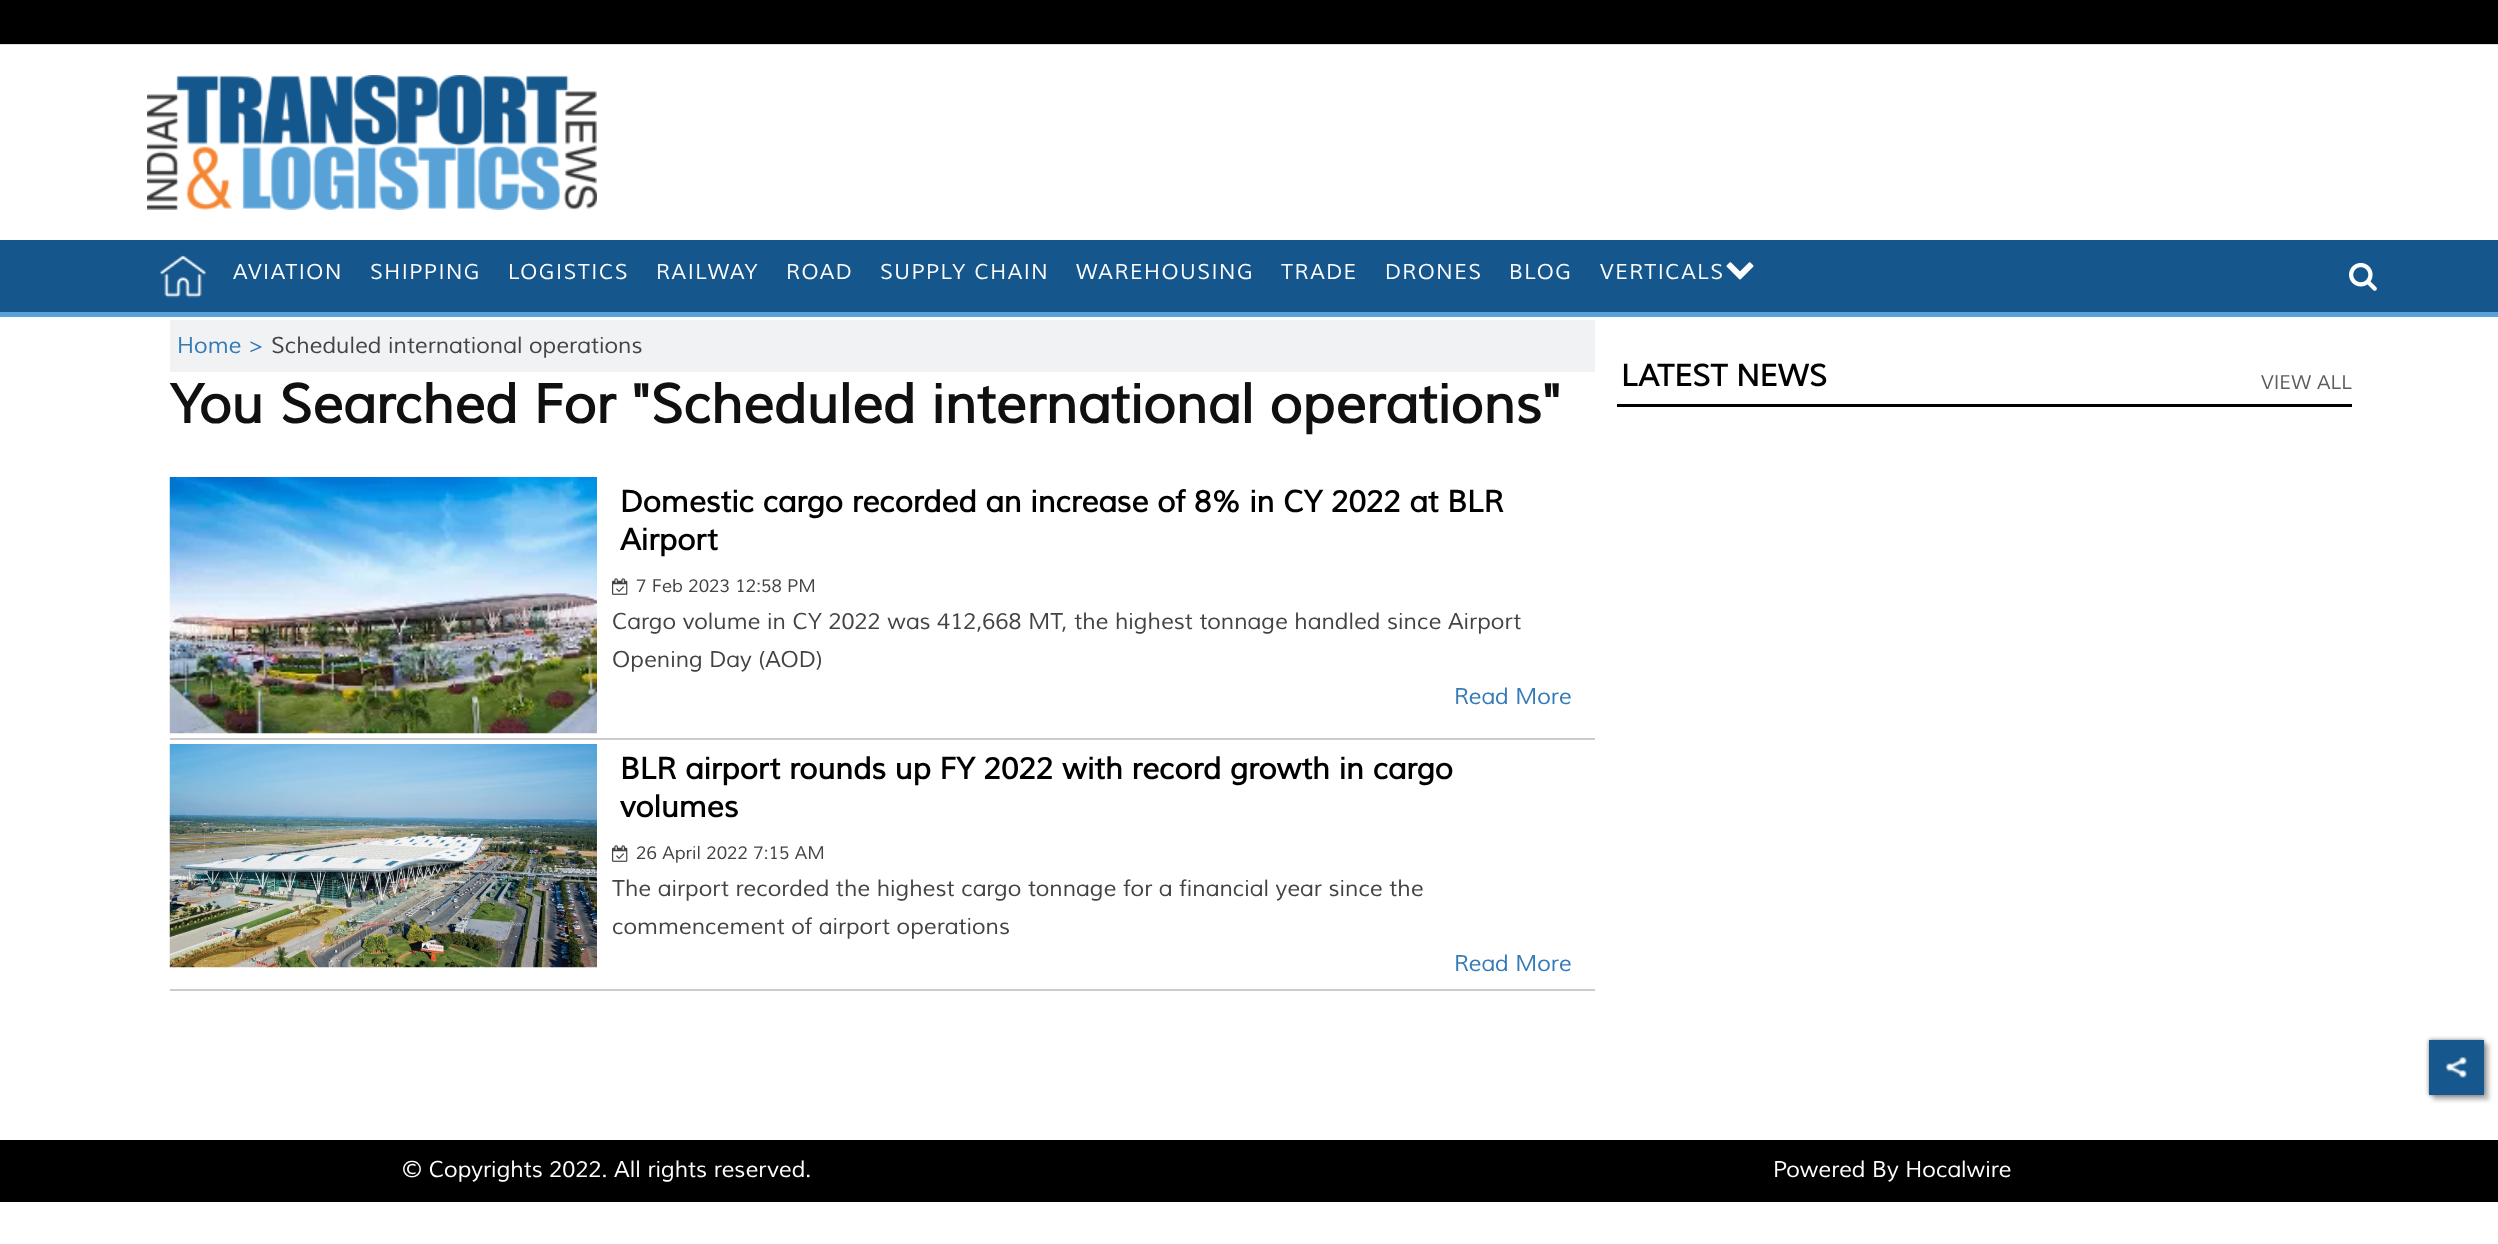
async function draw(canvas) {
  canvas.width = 2498;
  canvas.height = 1244;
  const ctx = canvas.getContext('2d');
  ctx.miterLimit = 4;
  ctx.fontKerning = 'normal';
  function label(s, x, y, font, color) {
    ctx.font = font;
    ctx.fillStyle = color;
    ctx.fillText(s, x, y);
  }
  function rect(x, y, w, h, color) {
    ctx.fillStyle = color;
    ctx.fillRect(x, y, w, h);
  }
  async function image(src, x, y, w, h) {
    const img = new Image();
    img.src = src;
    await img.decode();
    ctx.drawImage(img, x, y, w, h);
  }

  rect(0, 0, 2498, 1244, '#fff');
  rect(0, 0, 2498, 44, '#000');
  rect(0, 44, 2498, 1, '#ddd');
  await image('assets/img1.png', 147, 75, 450, 135);
  rect(0, 240, 2498, 72, '#15578d');
  rect(0, 312, 2498, 5, '#58a2d8');
  await image('assets/img2.png', 160, 255, 46, 43);
  ctx.letterSpacing = '1.5px';
  label('AVIATION', 233, 279, 'italic 21px Muli', '#fff');
  label('SHIPPING', 370, 279, 'italic 21px Muli', '#fff');
  label('LOGISTICS', 508, 279, 'italic 21px Muli', '#fff');
  label('RAILWAY', 656, 279, 'italic 21px Muli', '#fff');
  label('ROAD', 786, 279, 'italic 21px Muli', '#fff');
  label('SUPPLY CHAIN', 880, 279, 'italic 21px Muli', '#fff');
  label('WAREHOUSING', 1076, 279, 'italic 21px Muli', '#fff');
  label('TRADE', 1281, 279, 'italic 21px Muli', '#fff');
  label('DRONES', 1385, 279, 'italic 21px Muli', '#fff');
  label('BLOG', 1509, 279, 'italic 21px Muli', '#fff');
  label('VERTICALS', 1600, 279, 'italic 21px Muli', '#fff');
  await image('assets/img3.png', 1726, 262, 28, 18);
  await image('assets/img4.png', 2349, 262, 28, 29);
  rect(170, 320, 1425, 52, '#f1f2f3');
  ctx.letterSpacing = '0px';
  label('Home >', 177, 353, 'italic 22.5px Muli', '#337ab7');
  label('Scheduled international operations', 271, 353, 'italic 22.5px Muli', '#434343');
  label('You Searched For "Scheduled international operations"', 170, 423, 'italic bold 54px Muli', '#101010');
  rect(170, 738, 1425, 2, '#ccc');
  await image('assets/img5.png', 169, 477, 428, 257);
  label('Domestic cargo recorded an increase of 8% in CY 2022 at BLR', 620, 512, 'italic bold 30px Muli', '#000');
  label('Airport', 620, 550, 'italic bold 30px Muli', '#000');
  await image('assets/img6.png', 612, 578, 16, 17);
  label('7 Feb 2023 12:58 PM', 636, 592, 'italic 18px Muli', '#434343');
  label('Cargo volume in CY 2022 was 412,668 MT, the highest tonnage handled since Airport', 612, 629, 'italic 22.5px Muli', '#434343');
  label('Opening Day (AOD)', 612, 667, 'italic 22.5px Muli', '#434343');
  label('Read More', 1454, 704, 'italic 22.5px Muli', '#337ab7');
  rect(170, 989, 1425, 2, '#ccc');
  await image('assets/img7.png', 169, 744, 428, 224);
  label('BLR airport rounds up FY 2022 with record growth in cargo', 620, 779, 'italic bold 30px Muli', '#000');
  label('volumes', 620, 817, 'italic bold 30px Muli', '#000');
  await image('assets/img6.png', 612, 845, 16, 17);
  label('26 April 2022 7:15 AM', 636, 859, 'italic 18px Muli', '#434343');
  label('The airport recorded the highest cargo tonnage for a financial year since the', 612, 896, 'italic 22.5px Muli', '#434343');
  label('commencement of airport operations', 612, 934, 'italic 22.5px Muli', '#434343');
  label('Read More', 1454, 971, 'italic 22.5px Muli', '#337ab7');
  rect(1617, 404, 735, 3, '#000');
  label('LATEST NEWS', 1621, 386, 'italic bold 30px Muli', '#000');
  label('VIEW ALL', 2261, 389, 'italic 19.5px Muli', '#5d5d5d');
  rect(0, 1140, 2498, 62, '#000');
  label('© Copyrights 2022. All rights reserved.', 402, 1177, 'italic 22.5px Muli', '#fff');
  label('Powered By Hocalwire', 1773, 1177, 'italic 22.5px Muli', '#fff');
  ctx.fillStyle = '#00000040';
  ctx.filter = 'blur(2px)';
  ctx.beginPath();
  ctx.rect(2433, 1044, 56, 56);
  ctx.fill();
  ctx.filter = 'none';
  ctx.fillStyle = '#00000080';
  ctx.filter = 'blur(2px)';
  ctx.beginPath();
  ctx.rect(2429, 1040, 55, 55);
  ctx.fill();
  ctx.filter = 'none';
  rect(2429, 1040, 55, 55, '#16588d');
  await image('assets/img8.png', 2446, 1057, 21, 21);
}

draw(document.querySelector('canvas'));
